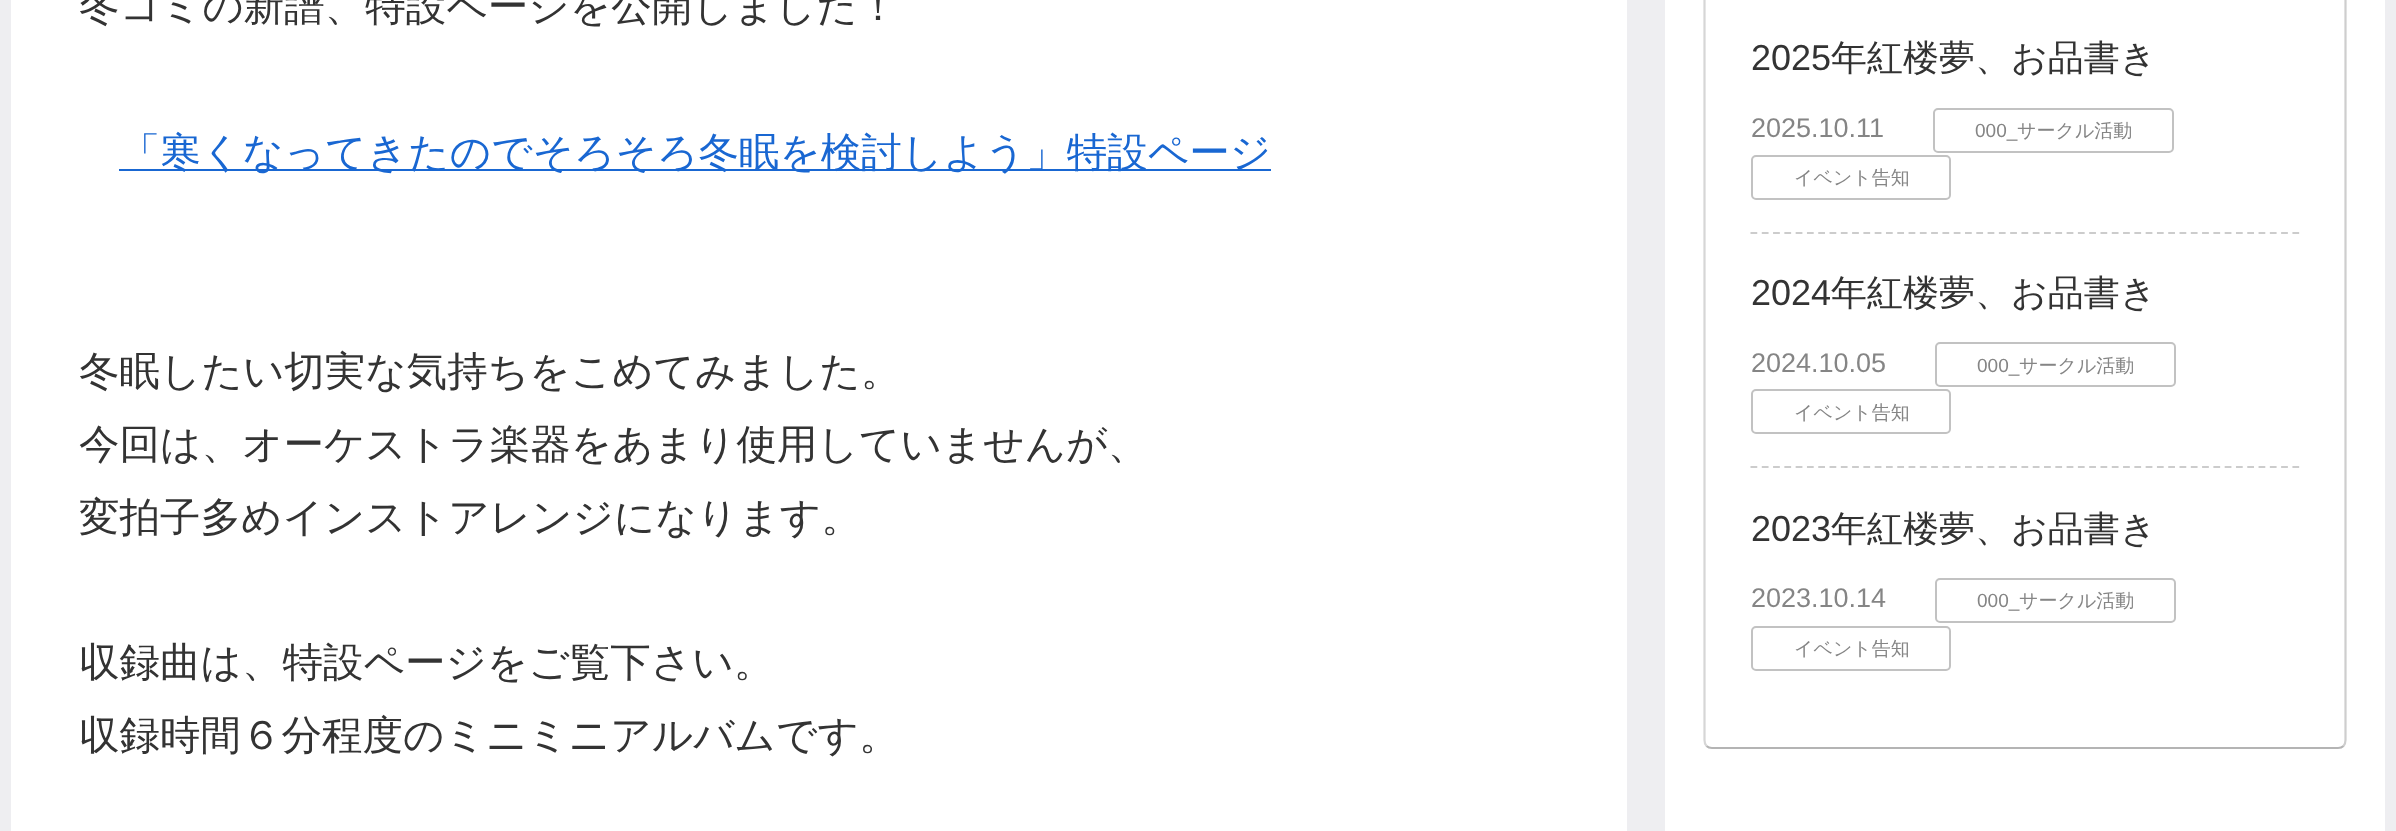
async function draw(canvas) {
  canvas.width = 2396;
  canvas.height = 831;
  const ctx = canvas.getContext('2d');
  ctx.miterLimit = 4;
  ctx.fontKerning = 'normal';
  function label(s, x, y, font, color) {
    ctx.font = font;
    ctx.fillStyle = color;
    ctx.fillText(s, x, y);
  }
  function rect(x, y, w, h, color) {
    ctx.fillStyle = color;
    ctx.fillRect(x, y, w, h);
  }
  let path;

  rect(0, 0, 2396, 831, '#eeeef1');
  rect(11, 0, 1616, 831, '#fff');
  label('冬コミの新譜、特設ページを公開しました！', 79, 20, '500 40.5px WenQuanYi Zen Hei', '#333');
  rect(119, 169, 1152, 2, '#1967d2');
  label('「寒くなってきたのでそろそろ冬眠を検討しよう」特設ページ', 120, 166, '500 40.5px WenQuanYi Zen Hei', '#1967d2');
  label('冬眠したい切実な気持ちをこめてみました。', 79, 385, '500 40.5px WenQuanYi Zen Hei', '#333');
  label('今回は、オーケストラ楽器をあまり使用していませんが、', 79, 458, '500 40.5px WenQuanYi Zen Hei', '#333');
  label('変拍子多めインストアレンジになります。', 79, 531, '500 40.5px WenQuanYi Zen Hei', '#333');
  label('収録曲は、特設ページをご覧下さい。', 79, 676, '500 40.5px WenQuanYi Zen Hei', '#333');
  label('収録時間６分程度のミニミニアルバムです。', 79, 749, '500 40.5px WenQuanYi Zen Hei', '#333');
  rect(1665, 0, 720, 831, '#fff');
  path = new Path2D('M2343.5-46C2345-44.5 2345.5-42.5 2345.5-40.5V740C2345.5 742.5 2345 744.5 2343.5 746');
  ctx.strokeStyle = '#cecece';
  ctx.lineWidth = 2.2;
  ctx.stroke(path);
  path = new Path2D('M2343.5 746C2342 747.5 2340 748 2338 748H1712C1710 748 1708 747.5 1706.5 746');
  ctx.strokeStyle = '#b4b4b4';
  ctx.stroke(path);
  path = new Path2D('M1706.5 746C1705 744.5 1704.5 742.5 1704.5 740V-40.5C1704.5-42.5 1705-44.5 1706.5-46');
  ctx.strokeStyle = '#d6d6d6';
  ctx.stroke(path);
  path = new Path2D('M1750.5 233H2299.5');
  ctx.strokeStyle = '#ccc';
  ctx.setLineDash([6.75, 4.54]);
  ctx.stroke(path);
  label('2025', 1751, 70, '36px Liberation Sans', '#333');
  label('年紅楼夢、お品書き', 1831, 70, '500 36px WenQuanYi Zen Hei', '#333');
  label('2025.10.11', 1751, 137, '27px Liberation Sans', '#858585');
  ctx.beginPath();
  ctx.roundRect(1934, 109, 239, 43, 4);
  ctx.strokeStyle = '#c2c2c2';
  ctx.lineWidth = 2;
  ctx.setLineDash([]);
  ctx.stroke();
  label('000_', 1975, 137, '19px Liberation Sans', '#858585');
  label('サークル活動', 2017, 137, '500 19px WenQuanYi Zen Hei', '#858585');
  ctx.beginPath();
  ctx.roundRect(1752, 156, 198, 43, 4);
  ctx.stroke();
  label('イベント告知', 1794, 184, '500 19px WenQuanYi Zen Hei', '#858585');
  path = new Path2D('M1750.5 467H2299.5');
  ctx.strokeStyle = '#ccc';
  ctx.lineWidth = 2.2;
  ctx.setLineDash([6.75, 4.54]);
  ctx.stroke(path);
  label('2024', 1751, 305, '36px Liberation Sans', '#333');
  label('年紅楼夢、お品書き', 1831, 305, '500 36px WenQuanYi Zen Hei', '#333');
  label('2024.10.05', 1751, 372, '27px Liberation Sans', '#858585');
  ctx.beginPath();
  ctx.roundRect(1936, 343, 239, 43, 4);
  ctx.strokeStyle = '#c2c2c2';
  ctx.lineWidth = 2;
  ctx.setLineDash([]);
  ctx.stroke();
  label('000_', 1977, 372, '19px Liberation Sans', '#858585');
  label('サークル活動', 2019, 372, '500 19px WenQuanYi Zen Hei', '#858585');
  ctx.beginPath();
  ctx.roundRect(1752, 390, 198, 43, 4);
  ctx.stroke();
  label('イベント告知', 1794, 419, '500 19px WenQuanYi Zen Hei', '#858585');
  label('2023', 1751, 541, '36px Liberation Sans', '#333');
  label('年紅楼夢、お品書き', 1831, 541, '500 36px WenQuanYi Zen Hei', '#333');
  label('2023.10.14', 1751, 607, '27px Liberation Sans', '#858585');
  ctx.beginPath();
  ctx.roundRect(1936, 579, 239, 43, 4);
  ctx.stroke();
  label('000_', 1977, 607, '19px Liberation Sans', '#858585');
  label('サークル活動', 2019, 607, '500 19px WenQuanYi Zen Hei', '#858585');
  ctx.beginPath();
  ctx.roundRect(1752, 627, 198, 43, 4);
  ctx.stroke();
  label('イベント告知', 1794, 655, '500 19px WenQuanYi Zen Hei', '#858585');
}

draw(document.querySelector('canvas'));
